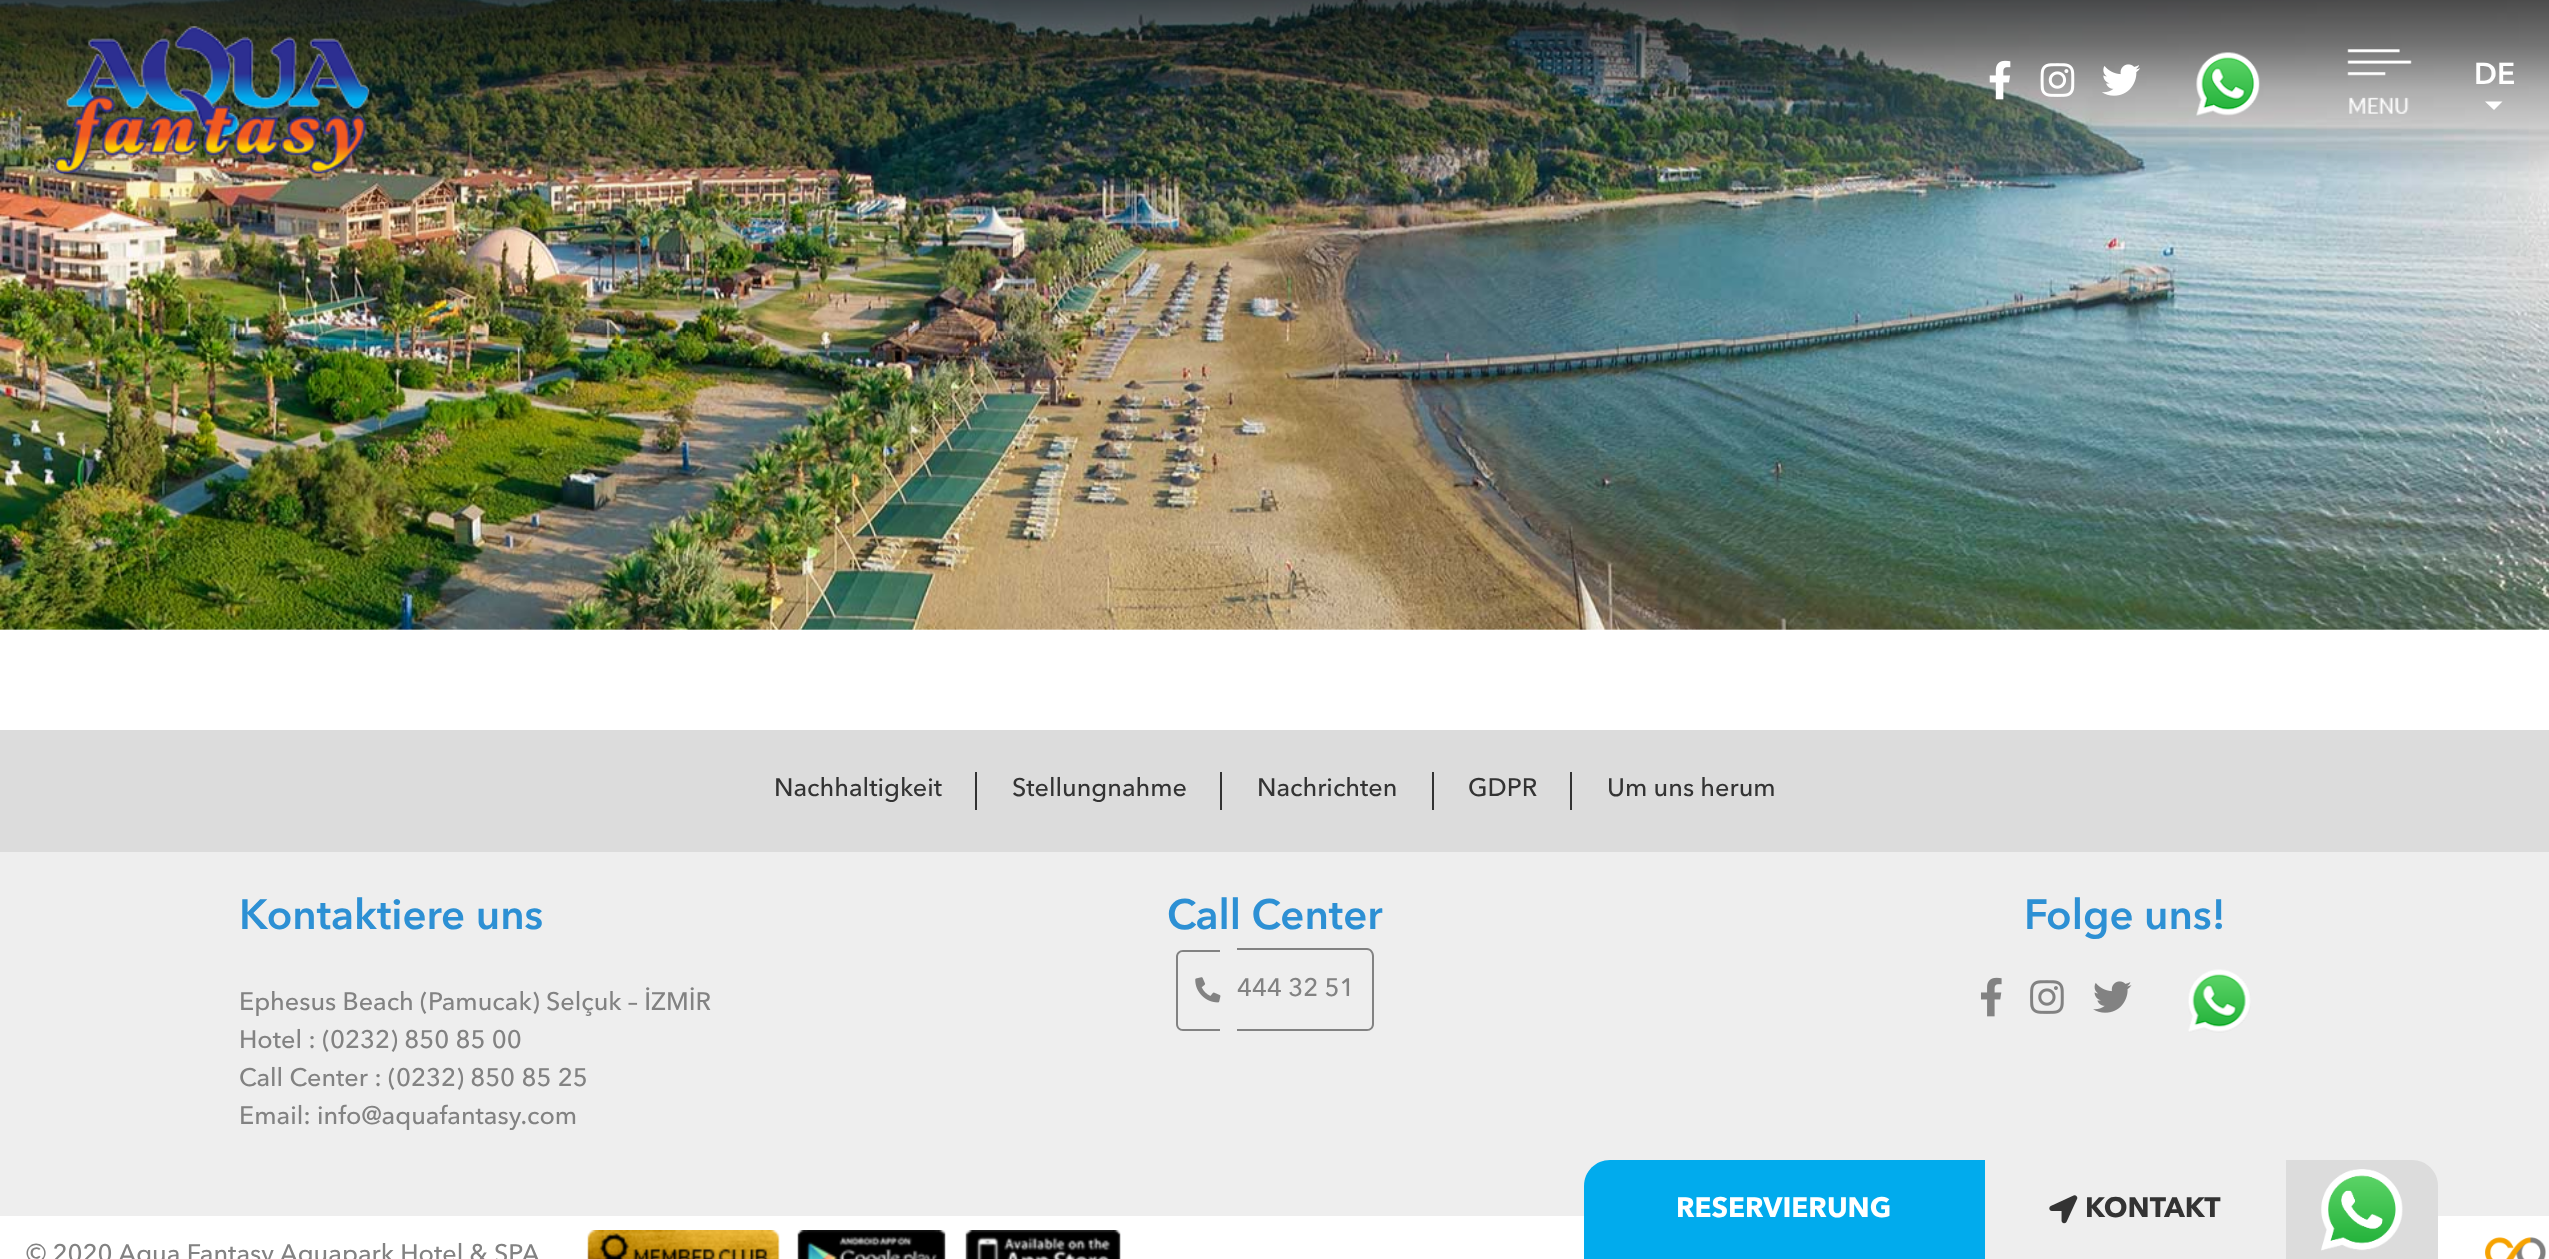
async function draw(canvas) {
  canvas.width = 2549;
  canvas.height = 1259;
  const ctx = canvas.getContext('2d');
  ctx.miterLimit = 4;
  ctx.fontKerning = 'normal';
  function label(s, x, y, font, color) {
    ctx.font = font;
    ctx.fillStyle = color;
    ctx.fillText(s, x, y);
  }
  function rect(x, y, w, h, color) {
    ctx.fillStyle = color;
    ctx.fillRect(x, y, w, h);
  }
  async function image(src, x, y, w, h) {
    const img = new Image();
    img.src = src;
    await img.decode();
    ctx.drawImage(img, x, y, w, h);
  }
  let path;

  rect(0, 0, 2549, 1259, '#fff');
  await image('assets/img1.png', 0, 0, 2549, 630);
  await image('assets/img2.png', 54, 26, 316, 148);
  await image('assets/img3.png', 1989, 60, 22, 40);
  await image('assets/img4.png', 2040, 63, 35, 34);
  await image('assets/img5.png', 2102, 64, 38, 32);
  await image('assets/img6.png', 2196, 52, 64, 64);
  await image('assets/img7.png', 2347, 49, 65, 65);
  label('DE', 2474, 84, '600 30px Avenir Next', '#fff');
  path = new Path2D('M2485 101.5H2502.5L2494 110Z');
  ctx.fill(path);
  rect(0, 730, 2549, 122, '#dcdcdc');
  label('Nachhaltigkeit', 774, 796, '500 25.2px Avenir Next', '#333');
  rect(975, 772, 2, 38, '#333');
  label('Stellungnahme', 1012, 796, '500 25.2px Avenir Next', '#333');
  rect(1220, 772, 2, 38, '#333');
  label('Nachrichten', 1257, 796, '500 25.2px Avenir Next', '#333');
  rect(1432, 772, 2, 38, '#333');
  label('GDPR', 1468, 796, '500 25.2px Avenir Next', '#333');
  rect(1570, 772, 2, 38, '#333');
  label('Um uns herum', 1607, 796, '500 25.2px Avenir Next', '#333');
  rect(0, 852, 2549, 364, '#eee');
  label('Kontaktiere uns', 239, 929, '600 42px Avenir Next', '#2d90d4');
  label('Ephesus Beach (Pamucak) Selçuk – İZMİR', 239, 1010, '500 25.2px Avenir Next', '#828282');
  label('Hotel : (0232) 850 85 00', 239, 1048, '500 25.2px Avenir Next', '#828282');
  label('Call Center : (0232) 850 85 25', 239, 1086, '500 25.2px Avenir Next', '#828282');
  label('Email: info@aquafantasy.com', 239, 1124, '500 25.2px Avenir Next', '#828282');
  label('Call Center', 1167, 929, '600 42px Avenir Next', '#2d90d4');
  ctx.fillStyle = '#828282';
  path = new Path2D('M1183 950H1220V1031H1183C1179 1031 1176 1028 1176 1024V957C1176 953 1179 950 1183 950ZM1183 952H1220V1029H1183C1180 1029 1178 1027 1178 1024V957C1178 954 1180 952 1183 952Z');
  ctx.fill(path, 'evenodd');
  path = new Path2D('M1237 948H1367C1371 948 1374 952 1374 956V1024C1374 1028 1371 1031 1367 1031H1237ZM1237 950H1367C1370 950 1372 953 1372 956V1024C1372 1027 1370 1029 1367 1029H1237Z');
  ctx.fill(path, 'evenodd');
  await image('assets/img8.png', 1195, 977, 26, 26);
  label('444 32 51', 1237, 996, '500 25.2px Avenir Next', '#828282');
  label('Folge uns!', 2024, 929, '600 42px Avenir Next', '#2d90d4');
  await image('assets/img9.png', 1981, 977, 21, 40);
  await image('assets/img10.png', 2030, 980, 34, 34);
  await image('assets/img11.png', 2093, 981, 39, 32);
  await image('assets/img12.png', 2188, 969, 63, 64);
  label('© 2020 Aqua Fantasy Aquapark Hotel & SPA', 26, 1262, '500 25.2px Avenir Next', '#828282');
  await image('assets/img13.png', 587, 1230, 193, 29);
  await image('assets/img14.png', 797, 1230, 149, 29);
  await image('assets/img15.png', 965, 1230, 156, 29);
  await image('assets/img16.png', 2485, 1237, 61, 22);
  ctx.fillStyle = '#01abed';
  path = new Path2D('M1610 1160H1985V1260H1584V1186C1584 1171.5 1595.5 1160 1610 1160Z');
  ctx.fill(path);
  label('RESERVIERUNG', 1676, 1217, 'bold 28px Avenir Next', '#fff');
  rect(1985, 1216, 301, 43, '#eee');
  await image('assets/img17.png', 2049, 1195, 29, 29);
  label('KONTAKT', 2085, 1217, 'bold 28px Avenir Next', '#333');
  ctx.fillStyle = '#dcdcdc';
  path = new Path2D('M2286 1160H2412C2426.5 1160 2438 1171.5 2438 1186V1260H2286Z');
  ctx.fill(path);
  await image('assets/img18.png', 2321, 1169, 82, 82);
}

draw(document.querySelector('canvas'));
